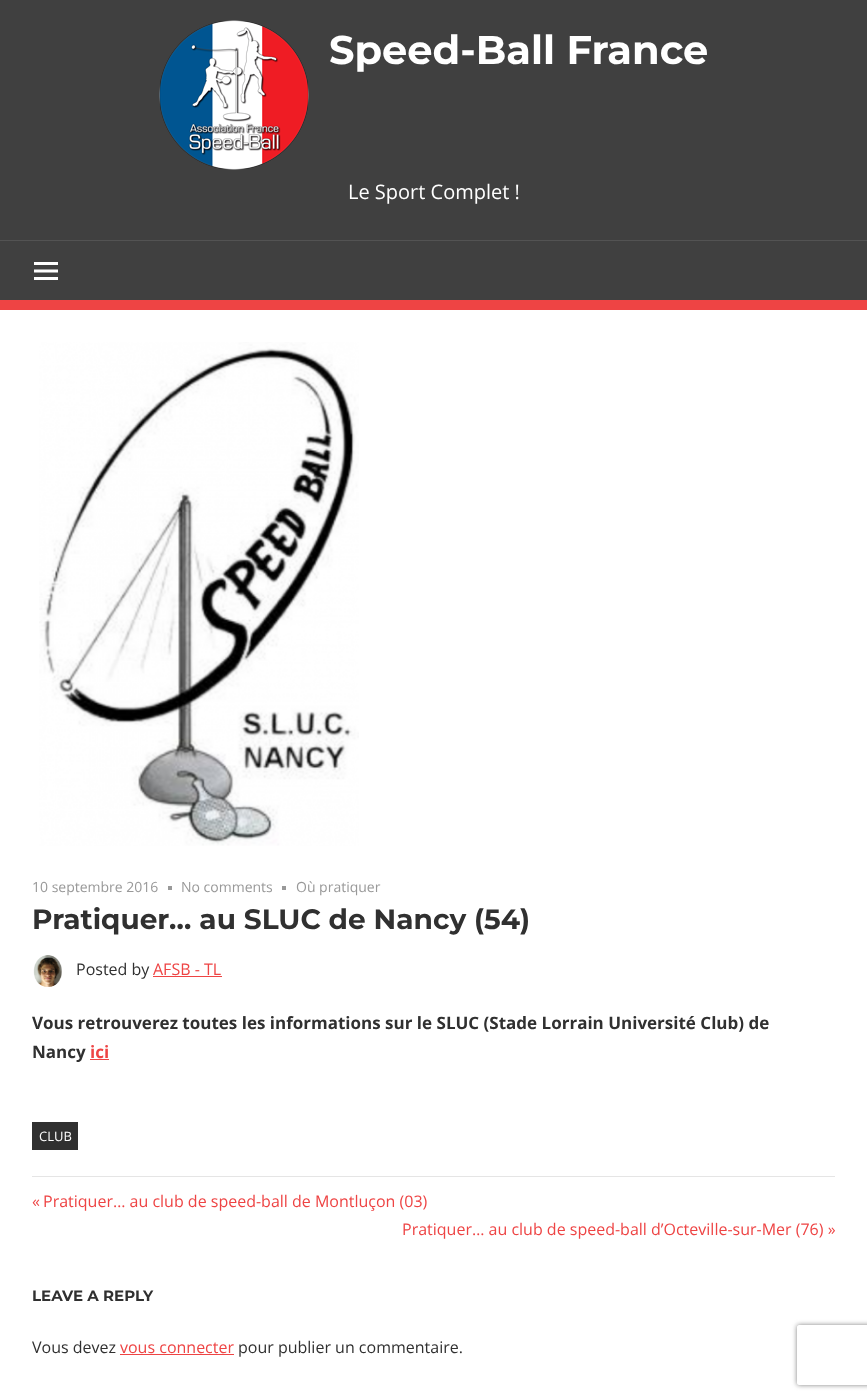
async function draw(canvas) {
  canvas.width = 867;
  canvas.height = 1399;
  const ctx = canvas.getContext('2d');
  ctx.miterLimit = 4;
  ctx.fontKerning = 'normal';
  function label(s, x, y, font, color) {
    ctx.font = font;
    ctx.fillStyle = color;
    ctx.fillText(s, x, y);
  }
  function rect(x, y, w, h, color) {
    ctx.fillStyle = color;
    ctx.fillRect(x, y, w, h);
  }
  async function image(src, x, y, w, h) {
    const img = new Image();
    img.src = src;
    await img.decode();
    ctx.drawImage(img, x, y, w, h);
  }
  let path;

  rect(0, 0, 867, 1399, '#404040');
  rect(0, 300, 867, 10, '#e44');
  await image('assets/img1.png', 159, 20, 150, 150);
  label('Speed-Ball France', 329, 64, 'bold 40px Montserrat', '#fff');
  label('Le Sport Complet !', 348, 199, '20px Open Sans', '#fff');
  rect(0, 240, 867, 1, '#535353');
  await image('assets/img2.png', 34, 262, 24, 18);
  rect(0, 310, 867, 1089, '#fff');
  await image('assets/img3.png', 39, 342, 320, 504);
  label('10 septembre 2016', 32, 892, '14px Open Sans', '#999');
  rect(168, 886, 4, 4, '#999');
  label('No comments', 181, 892, '14px Open Sans', '#999');
  rect(282, 886, 4, 4, '#999');
  label('Où pratiquer', 296, 892, '14px Open Sans', '#999');
  label('Pratiquer… au SLUC de Nancy (54)', 32, 929, 'bold 28px Montserrat', '#303030');
  await image('assets/img4.png', 33, 955, 29, 32);
  label('Posted by', 76, 975, '16px Open Sans', '#303030');
  label('AFSB - TL', 153, 975, '16px Open Sans', '#e44');
  rect(153, 976, 69, 1, '#e44');
  label('Vous retrouverez toutes les informations sur le SLUC (Stade Lorrain Université Club) de', 32, 1029, 'bold 17px Open Sans', '#303030');
  label('Nancy', 32, 1058, 'bold 17px Open Sans', '#303030');
  rect(90, 1059, 19, 1, '#e44');
  label('ici', 90, 1058, 'bold 17px Open Sans', '#e44');
  rect(32, 1122, 46, 28, '#303030');
  label('CLUB', 39, 1141, '13px Open Sans', '#fff');
  rect(32, 1176, 803, 1, '#e5e5e5');
  label('«', 32, 1207, '16px Open Sans', '#e44');
  label('Pratiquer… au club de speed-ball de Montluçon (03)', 43, 1207, '16px Open Sans', '#e44');
  label('Pratiquer… au club de speed-ball d’Octeville-sur-Mer (76) »', 402, 1235, '16px Open Sans', '#e44');
  label('LEAVE A REPLY', 32, 1301, 'bold 15px Montserrat', '#303030');
  label('Vous devez', 32, 1353, '16px Open Sans', '#303030');
  label('vous connecter', 120, 1353, '16px Open Sans', '#e44');
  rect(120, 1354, 114, 1, '#e44');
  label('pour publier un commentaire.', 238, 1353, '16px Open Sans', '#303030');
  ctx.save();
  path = new Path2D('M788 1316H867V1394H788ZM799 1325H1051C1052 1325 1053 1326 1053 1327V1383C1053 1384 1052 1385 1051 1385H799C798 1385 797 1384 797 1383V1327C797 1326 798 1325 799 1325Z');
  ctx.clip(path, 'evenodd');
  ctx.fillStyle = '#808080';
  ctx.filter = 'blur(2.5px)';
  ctx.beginPath();
  ctx.roundRect(797, 1325, 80, 60, 2);
  ctx.fill();
  ctx.filter = 'none';
  ctx.restore();
}

draw(document.querySelector('canvas'));
